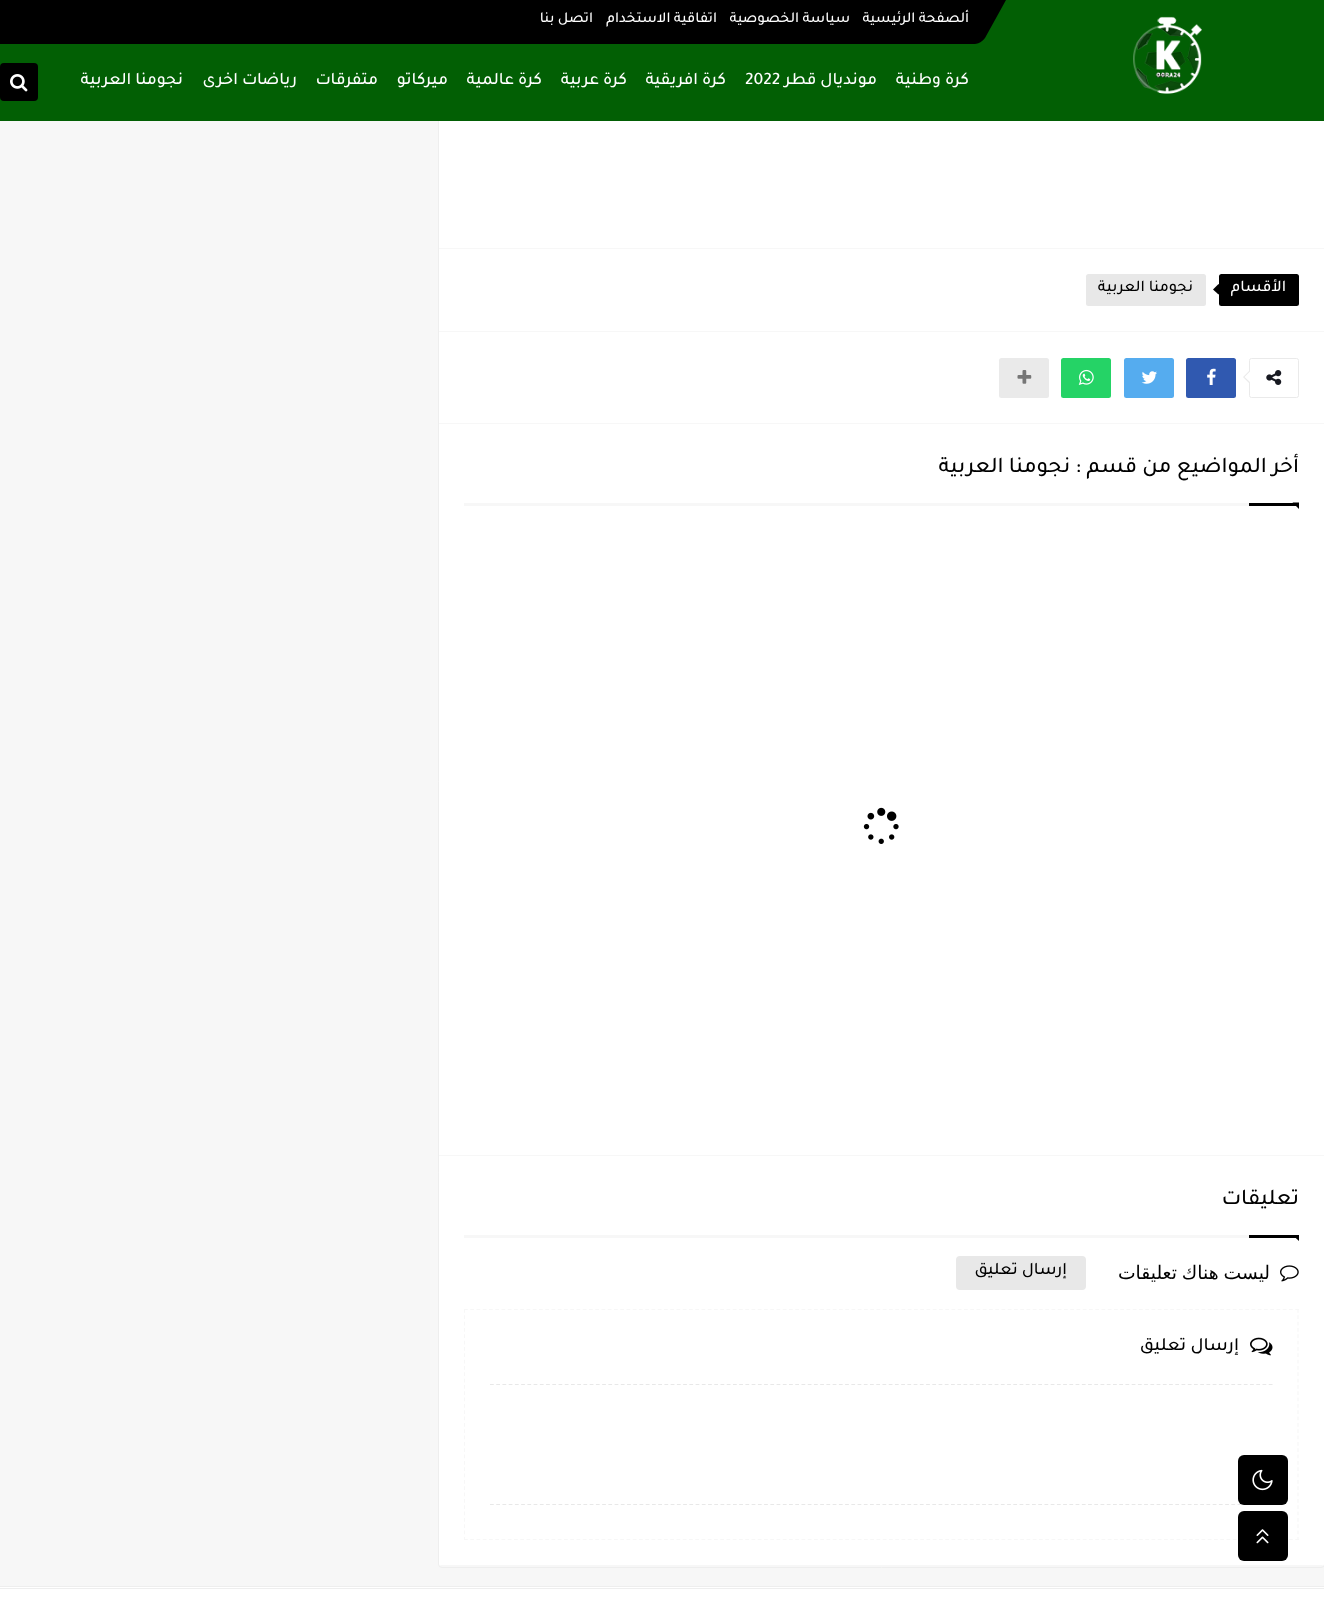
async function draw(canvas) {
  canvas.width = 1324;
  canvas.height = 1605;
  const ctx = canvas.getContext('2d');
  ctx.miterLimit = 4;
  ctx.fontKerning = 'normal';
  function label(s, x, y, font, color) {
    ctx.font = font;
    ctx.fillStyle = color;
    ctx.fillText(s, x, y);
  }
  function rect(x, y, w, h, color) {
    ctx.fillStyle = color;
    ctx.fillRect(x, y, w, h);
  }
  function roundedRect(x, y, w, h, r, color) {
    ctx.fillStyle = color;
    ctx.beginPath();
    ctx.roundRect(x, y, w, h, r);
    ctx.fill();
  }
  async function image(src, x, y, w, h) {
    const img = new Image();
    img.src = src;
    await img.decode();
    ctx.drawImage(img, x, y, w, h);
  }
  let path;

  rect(0, 0, 1324, 1605, '#f7f7f7');
  ctx.beginPath();
  ctx.roundRect(438.5, -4.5, 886, 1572, 3.5);
  ctx.strokeStyle = '#eee';
  ctx.stroke();
  rect(0, 0, 1324, 121, '#025f04');
  ctx.fillStyle = '#000';
  path = new Path2D('M-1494 0H1006L985 38C983 41 978 44 975 44H-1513C-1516 44-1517 41-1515 38Z');
  ctx.fill(path);
  ctx.direction = 'rtl';
  label('ألصفحة الرئيسية', 969, 22, '500 15px Tajawal', '#fff');
  label('سياسة الخصوصية', 850, 22, '500 15px Tajawal', '#fff');
  label('اتفاقية الاستخدام', 717, 22, '500 15px Tajawal', '#fff');
  label('اتصل بنا', 593, 22, '500 15px Tajawal', '#fff');
  await image('assets/img1.png', 1133, 16, 69, 78);
  label('كرة وطنية', 969, 84, '500 17.5px Tajawal', '#fff');
  label('مونديال قطر', 877, 84, '500 17.5px Tajawal', '#fff');
  ctx.direction = 'ltr';
  label('2022', 745, 84, '500 17.5px Tajawal', '#fff');
  ctx.direction = 'rtl';
  label('كرة افريقية', 726, 84, '500 17.5px Tajawal', '#fff');
  label('كرة عربية', 627, 84, '500 17.5px Tajawal', '#fff');
  label('كرة عالمية', 542, 84, '500 17.5px Tajawal', '#fff');
  label('ميركاتو', 448, 84, '500 17.5px Tajawal', '#fff');
  label('متفرقات', 378, 84, '500 17.5px Tajawal', '#fff');
  label('رياضات اخرى', 297, 84, '500 17.5px Tajawal', '#fff');
  label('نجومنا العربية', 183, 84, '500 17.5px Tajawal', '#fff');
  roundedRect(0, 63, 38, 38, 4, '#000');
  await image('assets/img2.png', 10, 74, 18, 18);
  rect(439, 121, 885, 127, '#fff');
  rect(439, 249, 885, 174, '#fff');
  rect(439, 331, 885, 1, '#f7f7f7');
  roundedRect(1219, 274, 80, 32, 2.5, '#000');
  label('الأقسام', 1286, 291, '500 16.25px Tajawal', '#fff');
  ctx.fillStyle = '#000';
  path = new Path2D('M1218.5 284L1223.5 289.5L1218.5 294.5L1213 289.5Z');
  ctx.fill(path);
  roundedRect(1086, 274, 120, 32, 2.5, '#e8e8e8');
  label('نجومنا العربية', 1193, 291, '500 16.25px Tajawal', '#000');
  ctx.beginPath();
  ctx.roundRect(1249.5, 358.5, 49, 39, 2);
  ctx.strokeStyle = '#eaeaea';
  ctx.stroke();
  await image('assets/img3.png', 1266, 370, 16, 15);
  ctx.fillStyle = '#fff';
  path = new Path2D('M1250 370L1257 377L1250 384L1243 377Z');
  ctx.fill(path);
  ctx.fillStyle = '#9b9b9b36';
  path = new Path2D('M1250 384L1243 377H1244.5L1250 382ZM1243 377L1250 370V371.5L1244.5 377Z');
  ctx.fill(path);
  roundedRect(1186, 358, 50, 40, 2.5, '#3059b0');
  await image('assets/img4.png', 1207, 368, 9, 17);
  roundedRect(1124, 358, 50, 40, 2.5, '#55acef');
  await image('assets/img5.png', 1141, 371, 16, 13);
  roundedRect(1061, 358, 50, 40, 2.5, '#25d366');
  await image('assets/img6.png', 1078, 369, 16, 16);
  roundedRect(999, 358, 50, 40, 2.5, '#eaeaea');
  await image('assets/img7.png', 1017, 370, 15, 14);
  rect(439, 424, 885, 731, '#fff');
  rect(464, 503, 785, 3, '#f7f7f7');
  label('أخر المواضيع من قسم', 1299, 472, '500 22.5px Tajawal', '#000');
  label(': نجومنا العربية', 1081, 472, '500 22.5px Tajawal', '#000');
  path = new Path2D('M1292.5 502.5H1299V509Z');
  ctx.fill(path);
  rect(1249, 503, 50, 3, '#000');
  await image('assets/img8.png', 863, 807, 36, 37);
  ctx.fillStyle = '#fff';
  ctx.beginPath();
  ctx.roundRect(439, 1156, 885, 410, [0, 0, 2.5, 2.5]);
  ctx.fill();
  ctx.save();
  ctx.beginPath();
  ctx.roundRect(439, -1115, 885, 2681, 2.5);
  ctx.clip();
  rect(439, 1565, 885, 1, '#f7f7f7');
  ctx.restore();
  rect(464, 1235, 785, 3, '#f7f7f7');
  label('تعليقات', 1299, 1204, '500 22.5px Tajawal', '#000');
  path = new Path2D('M1292.5 1235H1299V1241Z');
  ctx.fill(path);
  rect(1249, 1235, 50, 3, '#000');
  await image('assets/img9.png', 1280, 1265, 19, 17);
  ctx.wordSpacing = '-1px';
  label('ليست هناك تعليقات', 1270, 1279, '18.75px DejaVu Sans', '#000');
  roundedRect(956, 1256, 130, 34, 4, '#e8e8e8');
  ctx.wordSpacing = '0px';
  label('إرسال تعليق', 1067, 1274, '500 17.5px Tajawal', '#000');
  path = new Path2D('M464 1309.5H1299');
  ctx.strokeStyle = '#f7f7f7';
  ctx.lineWidth = 1.2;
  ctx.setLineDash([3.75, 2.5]);
  ctx.stroke(path);
  path = new Path2D('M1298 1309V1540');
  ctx.setLineDash([3.75, 2.58]);
  ctx.stroke(path);
  path = new Path2D('M464 1539.5H1299');
  ctx.setLineDash([3.75, 2.5]);
  ctx.stroke(path);
  path = new Path2D('M464.5 1309V1540');
  ctx.setLineDash([3.75, 2.58]);
  ctx.stroke(path);
  await image('assets/img10.png', 1250, 1337, 23, 19);
  label('إرسال تعليق', 1239, 1350, '500 18.75px Tajawal', '#000');
  path = new Path2D('M490 1384.5H1272.5');
  ctx.strokeStyle = '#e8e8e8';
  ctx.setLineDash([3.75, 2.48]);
  ctx.stroke(path);
  path = new Path2D('M490 1504.5H1272.5');
  ctx.stroke(path);
  roundedRect(1238, 1455, 50, 50, 6, '#000');
  await image('assets/img11.png', 1252, 1469, 21, 22);
  roundedRect(1238, 1511, 50, 50, 6, '#000');
  await image('assets/img12.png', 1256, 1529, 13, 15);
  rect(0, 1587, 1324, 18, '#fff');
  rect(0, 1586, 1324, 1, '#eee');
  rect(0, 1588, 1324, 1, '#eee');
}

draw(document.querySelector('canvas'));
